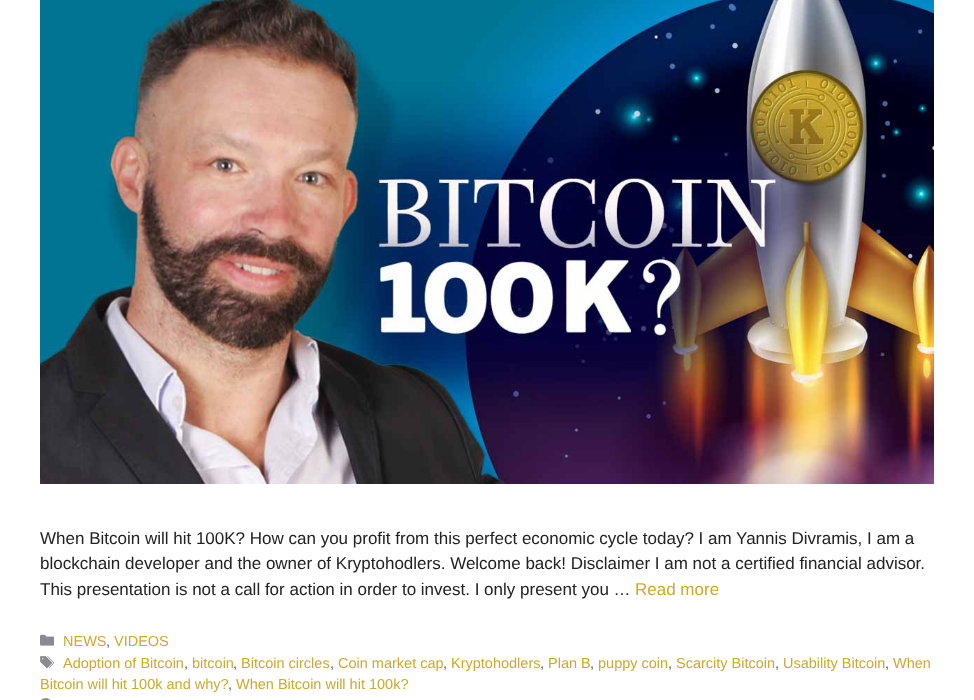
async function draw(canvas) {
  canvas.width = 974;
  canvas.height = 700;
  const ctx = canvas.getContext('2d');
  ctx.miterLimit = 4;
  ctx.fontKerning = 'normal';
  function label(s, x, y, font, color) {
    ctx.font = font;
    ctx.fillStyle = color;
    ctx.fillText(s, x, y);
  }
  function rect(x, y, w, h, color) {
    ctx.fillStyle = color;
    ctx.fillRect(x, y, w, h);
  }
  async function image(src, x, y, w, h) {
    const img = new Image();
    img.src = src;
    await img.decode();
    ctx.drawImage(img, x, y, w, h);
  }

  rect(0, 0, 974, 700, '#fff');
  await image('assets/img1.png', 40, 0, 894, 484);
  label('When Bitcoin will hit 100K? How can you profit from this perfect economic cycle today? I am Yannis Divramis, I am a', 40, 544, '17px Liberation Sans', '#222');
  label('blockchain developer and the owner of Kryptohodlers. Welcome back! Disclaimer I am not a certified financial advisor.', 40, 569, '17px Liberation Sans', '#222');
  label('This presentation is not a call for action in order to invest. I only present you …', 40, 595, '17px Liberation Sans', '#222');
  label('Read more', 635, 595, '17px Liberation Sans', '#cda92f');
  await image('assets/img2.png', 40, 634, 14, 12);
  label('NEWS', 63, 646, '14.5px Liberation Sans', '#cda92f');
  label(',', 106, 646, '14.5px Liberation Sans', '#575760');
  label('VIDEOS', 114, 646, '14.5px Liberation Sans', '#cda92f');
  await image('assets/img3.png', 40, 656, 14, 13);
  label('Adoption of Bitcoin', 63, 668, '14.5px Liberation Sans', '#cda92f');
  label(',', 184, 668, '14.5px Liberation Sans', '#575760');
  label('bitcoin', 192, 668, '14.5px Liberation Sans', '#cda92f');
  label(',', 233, 668, '14.5px Liberation Sans', '#575760');
  label('Bitcoin circles', 241, 668, '14.5px Liberation Sans', '#cda92f');
  label(',', 330, 668, '14.5px Liberation Sans', '#575760');
  label('Coin market cap', 338, 668, '14.5px Liberation Sans', '#cda92f');
  label(',', 443, 668, '14.5px Liberation Sans', '#575760');
  label('Kryptohodlers', 451, 668, '14.5px Liberation Sans', '#cda92f');
  label(',', 540, 668, '14.5px Liberation Sans', '#575760');
  label('Plan B', 548, 668, '14.5px Liberation Sans', '#cda92f');
  label(',', 590, 668, '14.5px Liberation Sans', '#575760');
  label('puppy coin', 598, 668, '14.5px Liberation Sans', '#cda92f');
  label(',', 668, 668, '14.5px Liberation Sans', '#575760');
  label('Scarcity Bitcoin', 676, 668, '14.5px Liberation Sans', '#cda92f');
  label(',', 775, 668, '14.5px Liberation Sans', '#575760');
  label('Usability Bitcoin', 783, 668, '14.5px Liberation Sans', '#cda92f');
  label(',', 885, 668, '14.5px Liberation Sans', '#575760');
  label('When', 893, 668, '14.5px Liberation Sans', '#cda92f');
  label('Bitcoin will hit 100k and why?', 40, 689, '14.5px Liberation Sans', '#cda92f');
  label(',', 228, 689, '14.5px Liberation Sans', '#575760');
  label('When Bitcoin will hit 100k?', 236, 689, '14.5px Liberation Sans', '#cda92f');
  await image('assets/img4.png', 41, 698, 9, 2);
}

draw(document.querySelector('canvas'));
